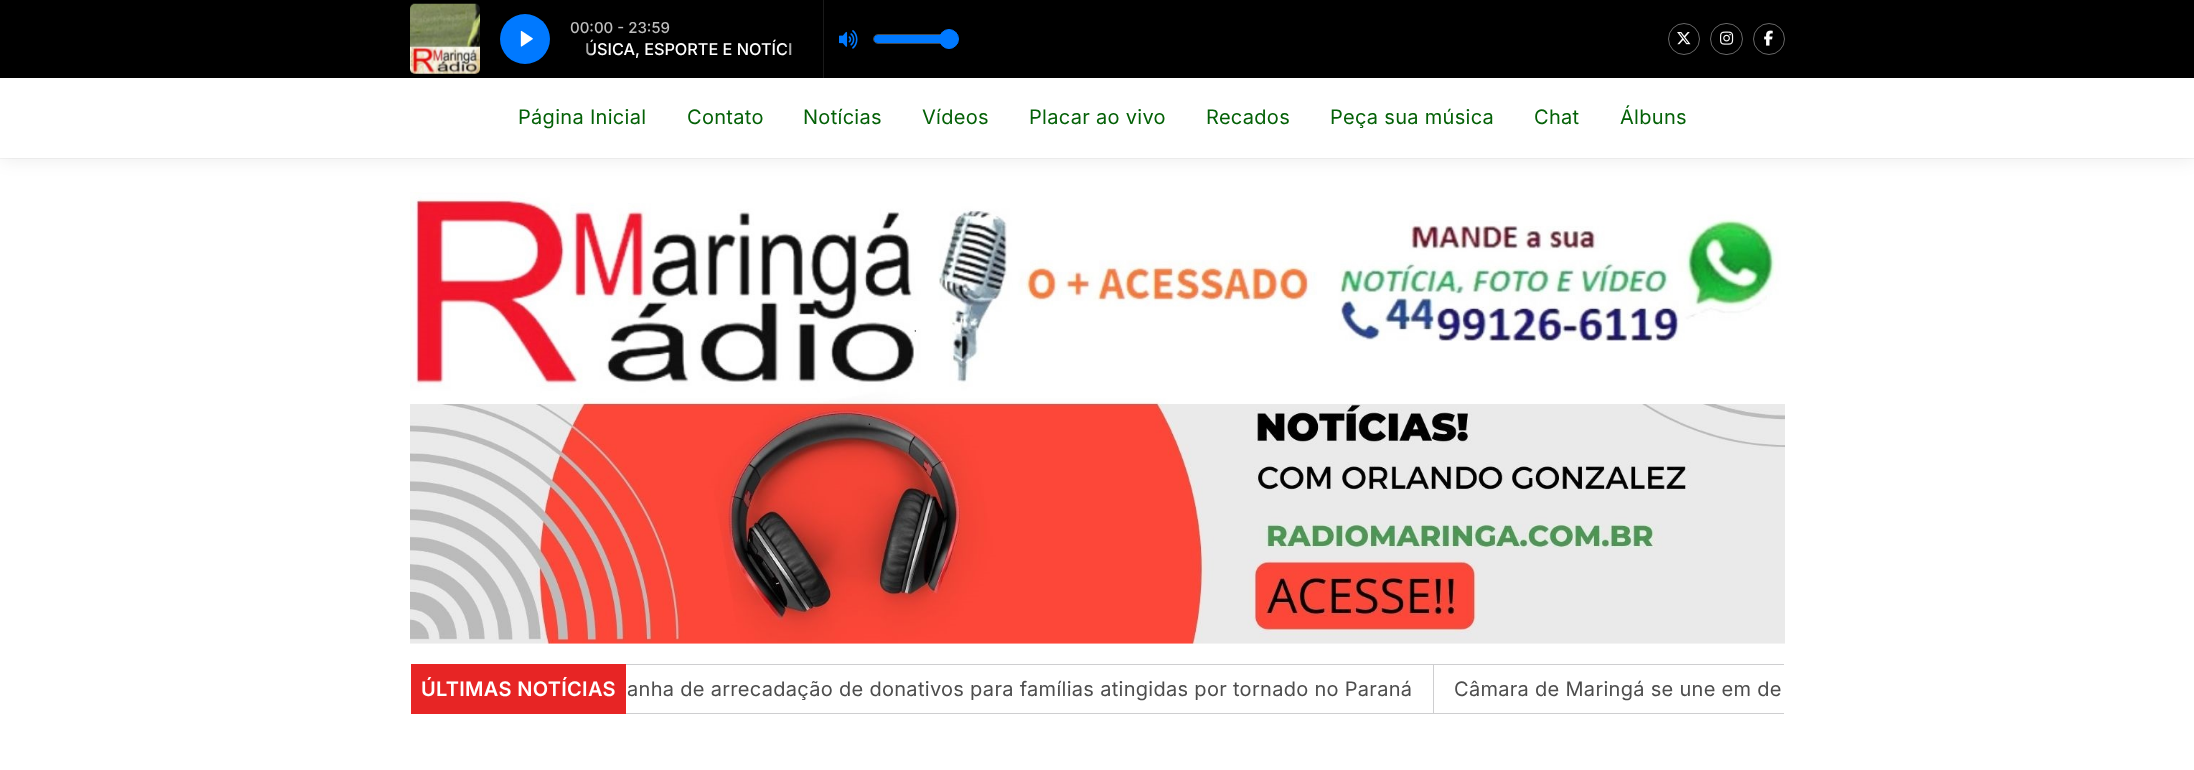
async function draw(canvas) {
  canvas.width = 2194;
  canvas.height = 770;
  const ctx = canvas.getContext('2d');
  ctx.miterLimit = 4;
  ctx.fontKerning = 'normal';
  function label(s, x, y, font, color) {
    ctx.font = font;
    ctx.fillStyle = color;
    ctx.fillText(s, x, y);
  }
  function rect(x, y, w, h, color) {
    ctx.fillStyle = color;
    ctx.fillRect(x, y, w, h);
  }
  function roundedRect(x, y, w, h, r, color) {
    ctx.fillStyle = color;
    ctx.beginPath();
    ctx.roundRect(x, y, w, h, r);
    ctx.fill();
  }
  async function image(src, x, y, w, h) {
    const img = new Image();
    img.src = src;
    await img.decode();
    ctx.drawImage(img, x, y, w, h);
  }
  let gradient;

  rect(0, 0, 2194, 770, '#fff');
  ctx.fillStyle = '#00000012';
  ctx.filter = 'blur(9px)';
  ctx.beginPath();
  ctx.rect(0, 80, 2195, 80);
  ctx.fill();
  ctx.filter = 'none';
  ctx.fillStyle = '#0000000a';
  ctx.filter = 'blur(0.5px)';
  ctx.beginPath();
  ctx.rect(0, 79, 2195, 80);
  ctx.fill();
  ctx.filter = 'none';
  rect(0, 0, 2194, 78, '#000');
  rect(823, 0, 1, 78, '#1a1a1a');
  await image('assets/img1.png', 410, 3, 70, 71);
  ctx.fillStyle = '#0079ff';
  ctx.beginPath();
  ctx.arc(525, 39, 25, 0, 2 * Math.PI);
  ctx.fill();
  await image('assets/img2.png', 520, 30, 13, 17);
  label('00:00 - 23:59', 570, 33, '500 15px Inter', '#bdbdbd');
  label('ÚSICA, ESPORTE E NOTÍCI', 585, 55, '500 16.25px Inter', '#fff');
  gradient = ctx.createLinearGradient(570, 49, 594, 49);
  gradient.addColorStop(0.2, '#000');
  gradient.addColorStop(1, '#00000000');
  ctx.fillStyle = gradient;
  ctx.fillRect(586, 39, 8, 17);
  gradient = ctx.createLinearGradient(808, 49, 784, 49);
  gradient.addColorStop(0.2, '#000');
  gradient.addColorStop(1, '#00000000');
  ctx.fillStyle = gradient;
  ctx.fillRect(784, 43, 7, 12);
  await image('assets/img3.png', 839, 30, 19, 19);
  ctx.beginPath();
  ctx.roundRect(873.5, 34.5, 76, 9, 4.5);
  ctx.strokeStyle = '#474747';
  ctx.stroke();
  roundedRect(874, 35, 75, 8, 4, '#0079ff');
  ctx.beginPath();
  ctx.arc(949, 39, 9.5, 0, 2 * Math.PI);
  ctx.fill();
  ctx.strokeStyle = '#0079ff';
  ctx.stroke();
  ctx.beginPath();
  ctx.arc(1684, 39, 15.5, 0, 2 * Math.PI);
  ctx.strokeStyle = '#686868';
  ctx.stroke();
  await image('assets/img4.png', 1677, 32, 14, 13);
  ctx.beginPath();
  ctx.roundRect(1710.5, 23.5, 32, 31, 15.5);
  ctx.stroke();
  await image('assets/img5.png', 1720, 31, 14, 14);
  ctx.beginPath();
  ctx.arc(1769, 39, 15.5, 0, 2 * Math.PI);
  ctx.stroke();
  await image('assets/img6.png', 1764, 30, 9, 16);
  rect(0, 78, 2194, 80, '#fff');
  ctx.letterSpacing = '0.3px';
  label('Página Inicial', 518, 124, '20px Inter', '#046107');
  label('Contato', 687, 124, '20px Inter', '#046107');
  label('Notícias', 803, 124, '20px Inter', '#046107');
  label('Vídeos', 922, 124, '20px Inter', '#046107');
  label('Placar ao vivo', 1029, 124, '20px Inter', '#046107');
  label('Recados', 1206, 124, '20px Inter', '#046107');
  label('Peça sua música', 1330, 124, '20px Inter', '#046107');
  label('Chat', 1534, 124, '20px Inter', '#046107');
  label('Álbuns', 1620, 124, '20px Inter', '#046107');
  await image('assets/img7.png', 410, 192, 1375, 452);
  rect(411, 664, 215, 50, '#e72525');
  label('ÚLTIMAS NOTÍCIAS', 421, 696, '600 20px Inter', '#fff');
  rect(626, 664, 1158, 1, '#ceced0');
  rect(626, 713, 1158, 1, '#ceced0');
  label('anha de arrecadação de donativos para famílias atingidas por tornado no Paraná', 627, 696, '20px Inter', '#4d4d4d');
  rect(1433, 665, 1, 48, '#ceced0');
  label('Câmara de Maringá se une em de', 1454, 696, '20px Inter', '#4d4d4d');
}

draw(document.querySelector('canvas'));
